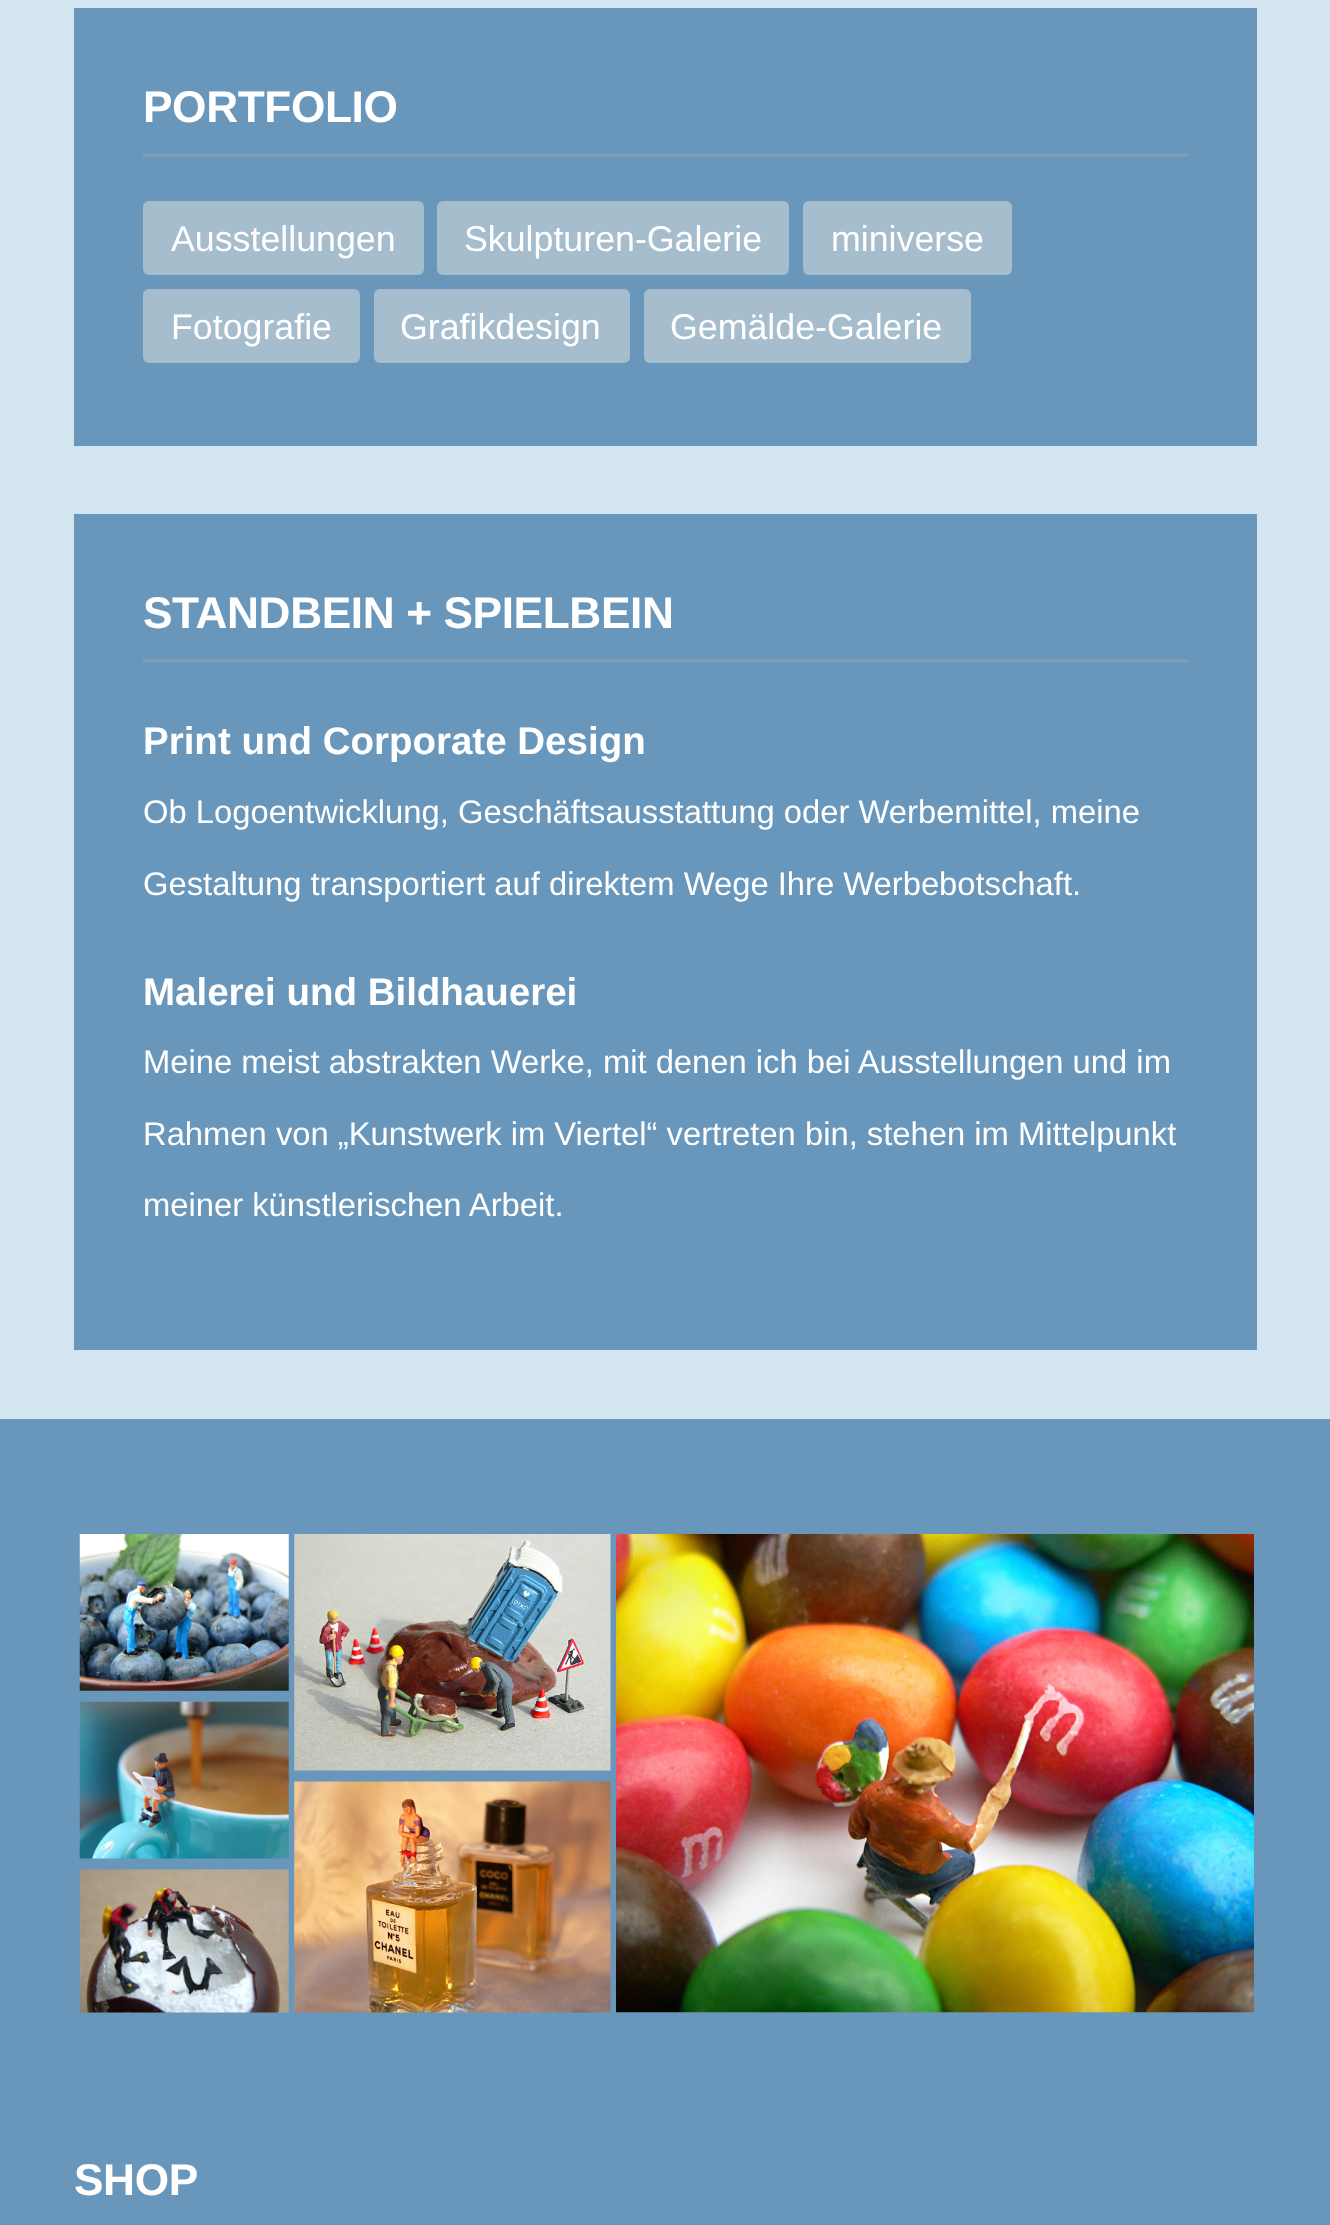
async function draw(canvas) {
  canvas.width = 1330;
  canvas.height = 2225;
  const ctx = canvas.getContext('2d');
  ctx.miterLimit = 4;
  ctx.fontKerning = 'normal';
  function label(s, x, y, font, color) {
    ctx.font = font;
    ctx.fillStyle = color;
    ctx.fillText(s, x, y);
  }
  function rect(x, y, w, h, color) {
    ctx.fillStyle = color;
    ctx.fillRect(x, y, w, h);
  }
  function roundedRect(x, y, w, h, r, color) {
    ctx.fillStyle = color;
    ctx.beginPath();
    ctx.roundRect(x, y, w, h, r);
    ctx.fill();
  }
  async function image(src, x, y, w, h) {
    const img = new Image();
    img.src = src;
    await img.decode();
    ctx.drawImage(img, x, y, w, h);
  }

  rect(0, 0, 1330, 2225, '#d2e5f0');
  rect(74, 8, 1183, 438, '#6997bb');
  rect(143, 153, 1045, 4, '#7d9db6');
  ctx.letterSpacing = '-0.4px';
  label('PORTFOLIO', 143, 122, 'bold 44.25px Liberation Sans', '#fff');
  roundedRect(143, 201, 281, 74, 6, '#a6bdce');
  ctx.letterSpacing = '0px';
  label('Ausstellungen', 171, 251, '35.75px Liberation Sans', '#fff');
  roundedRect(437, 201, 352, 74, 6, '#a6bdce');
  label('Skulpturen-Galerie', 464, 251, '35.75px Liberation Sans', '#fff');
  roundedRect(803, 201, 209, 74, 6, '#a6bdce');
  label('miniverse', 831, 251, '35.75px Liberation Sans', '#fff');
  roundedRect(143, 289, 217, 74, 6, '#a6bdce');
  label('Fotografie', 171, 339, '35.75px Liberation Sans', '#fff');
  roundedRect(374, 289, 256, 74, 6, '#a6bdce');
  label('Grafikdesign', 400, 339, '35.75px Liberation Sans', '#fff');
  roundedRect(644, 289, 327, 74, 6, '#a6bdce');
  label('Gemälde-Galerie', 670, 339, '35.75px Liberation Sans', '#fff');
  rect(74, 514, 1183, 836, '#6997bb');
  rect(143, 659, 1045, 4, '#7d9db6');
  ctx.letterSpacing = '-0.4px';
  label('STANDBEIN + SPIELBEIN', 143, 628, 'bold 44.25px Liberation Sans', '#fff');
  ctx.letterSpacing = '0px';
  label('Print und Corporate Design', 143, 754, 'bold 38.5px Liberation Sans', '#fff');
  label('Ob Logoentwicklung, Geschäftsausstattung oder Werbemittel, meine', 143, 823, '32.75px Liberation Sans', '#fff');
  label('Gestaltung transportiert auf direktem Wege Ihre Werbebotschaft.', 143, 895, '32.75px Liberation Sans', '#fff');
  label('Malerei und Bildhauerei', 143, 1005, 'bold 38.5px Liberation Sans', '#fff');
  label('Meine meist abstrakten Werke, mit denen ich bei Ausstellungen und im', 143, 1073, '32.75px Liberation Sans', '#fff');
  label('Rahmen von „Kunstwerk im Viertel“ vertreten bin, stehen im Mittelpunkt', 143, 1145, '32.75px Liberation Sans', '#fff');
  label('meiner künstlerischen Arbeit.', 143, 1216, '32.75px Liberation Sans', '#fff');
  rect(0, 1419, 1330, 806, '#6997bb');
  await image('assets/img1.png', 79, 1534, 210, 157);
  await image('assets/img2.png', 79, 1701, 210, 158);
  await image('assets/img3.png', 79, 1869, 210, 144);
  await image('assets/img4.png', 294, 1534, 317, 237);
  await image('assets/img5.png', 294, 1781, 317, 232);
  await image('assets/img6.png', 616, 1534, 638, 479);
  ctx.letterSpacing = '-0.4px';
  label('SHOP', 74, 2195, 'bold 44.25px Liberation Sans', '#fff');
}

draw(document.querySelector('canvas'));
